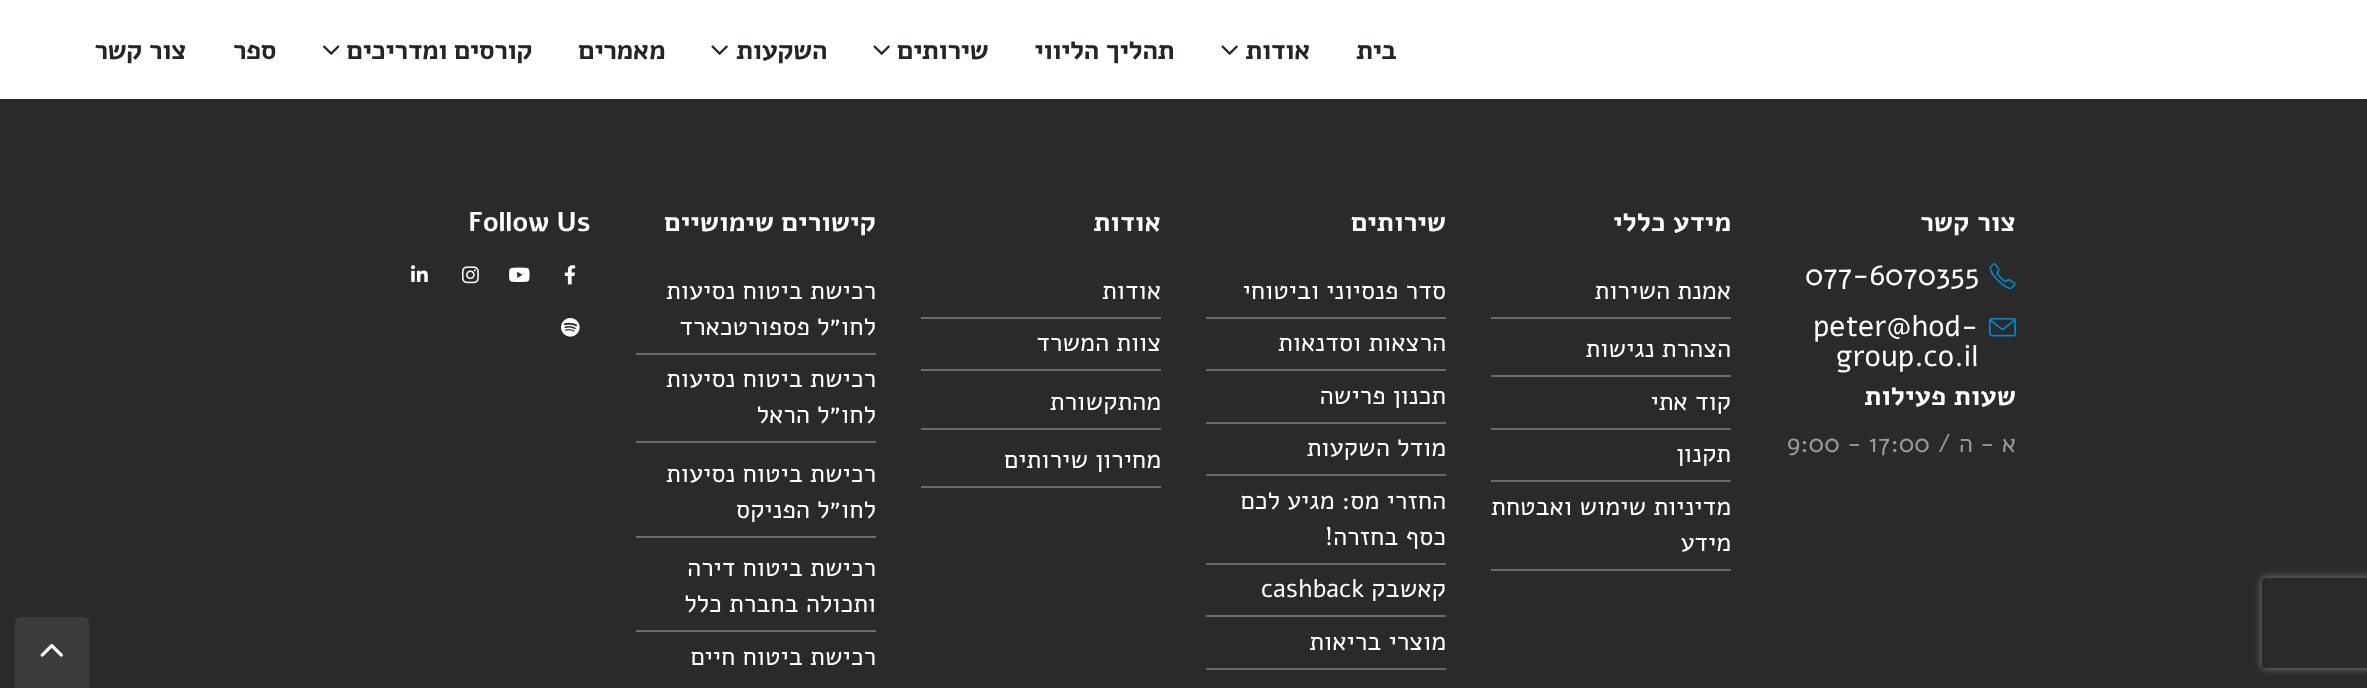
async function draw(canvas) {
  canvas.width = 2367;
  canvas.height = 688;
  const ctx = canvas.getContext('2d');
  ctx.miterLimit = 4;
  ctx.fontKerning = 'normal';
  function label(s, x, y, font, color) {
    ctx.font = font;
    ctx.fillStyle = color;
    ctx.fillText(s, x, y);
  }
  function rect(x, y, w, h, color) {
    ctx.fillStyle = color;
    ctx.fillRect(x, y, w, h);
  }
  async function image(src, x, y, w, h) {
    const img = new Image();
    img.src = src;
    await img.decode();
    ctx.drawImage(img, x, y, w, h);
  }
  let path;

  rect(0, 0, 2367, 688, '#2a2a2a');
  ctx.save();
  path = new Path2D('M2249 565H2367V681H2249ZM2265 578H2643C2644.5 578 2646 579.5 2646 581V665C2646 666.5 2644.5 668 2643 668H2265C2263.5 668 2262 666.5 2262 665V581C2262 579.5 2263.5 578 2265 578Z');
  ctx.clip(path, 'evenodd');
  ctx.fillStyle = '#808080';
  ctx.filter = 'blur(4px)';
  ctx.beginPath();
  ctx.roundRect(2262, 578, 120, 90, 3);
  ctx.fill();
  ctx.filter = 'none';
  ctx.restore();
  rect(0, 0, 2367, 99, '#fff');
  ctx.letterSpacing = '-0.6px';
  ctx.direction = 'rtl';
  label('בית', 1396, 59, 'bold 27px Alef', '#222529');
  label('אודות', 1310, 59, 'bold 27px Alef', '#222529');
  await image('assets/img1.png', 1221, 45, 17, 10);
  label('תהליך הליווי', 1174, 59, 'bold 27px Alef', '#222529');
  label('שירותים', 988, 59, 'bold 27px Alef', '#222529');
  await image('assets/img1.png', 873, 45, 17, 10);
  label('השקעות', 827, 59, 'bold 27px Alef', '#222529');
  await image('assets/img1.png', 711, 45, 17, 10);
  label('מאמרים', 665, 59, 'bold 27px Alef', '#222529');
  label('קורסים ומדריכים', 532, 59, 'bold 27px Alef', '#222529');
  await image('assets/img2.png', 322, 45, 18, 10);
  label('ספר', 276, 59, 'bold 27px Alef', '#222529');
  label('צור קשר', 186, 59, 'bold 27px Alef', '#222529');
  ctx.letterSpacing = '0px';
  label('צור קשר', 2016, 231, 'bold 27px Alef', '#fff');
  await image('assets/img3.png', 1989, 263, 27, 27);
  ctx.direction = 'ltr';
  label('077-6070355', 1805, 285, '30px Alef', '#fff');
  await image('assets/img4.png', 1989, 317, 27, 20);
  label('peter@hod-', 1813, 336, '30px Alef', '#fff');
  label('group.co.il', 1836, 366, '30px Alef', '#fff');
  ctx.direction = 'rtl';
  label('שעות פעילות', 2016, 405, 'bold 27px Alef', '#fff');
  label('א - ה /', 2016, 452, '25.5px Alef', '#999');
  ctx.direction = 'ltr';
  label('9:00 - 17:00', 1787, 452, '25.5px Alef', '#999');
  ctx.direction = 'rtl';
  label('מידע כללי', 1731, 231, 'bold 27px Alef', '#fff');
  rect(1491, 317, 240, 2, '#6a6a6a');
  label('אמנת השירות', 1731, 299, '25.5px Alef', '#fff');
  rect(1491, 375, 240, 2, '#6a6a6a');
  label('הצהרת נגישות', 1731, 357, '25.5px Alef', '#fff');
  rect(1491, 428, 240, 2, '#6a6a6a');
  label('קוד אתי', 1731, 410, '25.5px Alef', '#fff');
  rect(1491, 480, 240, 2, '#6a6a6a');
  label('תקנון', 1731, 462, '25.5px Alef', '#fff');
  rect(1491, 569, 240, 2, '#6a6a6a');
  label('מדיניות שימוש ואבטחת', 1731, 515, '25.5px Alef', '#fff');
  label('מידע', 1731, 551, '25.5px Alef', '#fff');
  label('שירותים', 1446, 231, 'bold 27px Alef', '#fff');
  rect(1206, 317, 240, 2, '#6a6a6a');
  label('סדר פנסיוני וביטוחי', 1446, 299, '25.5px Alef', '#fff');
  rect(1206, 369, 240, 2, '#6a6a6a');
  label('הרצאות וסדנאות', 1446, 351, '25.5px Alef', '#fff');
  rect(1206, 422, 240, 2, '#6a6a6a');
  label('תכנון פרישה', 1446, 404, '25.5px Alef', '#fff');
  rect(1206, 474, 240, 2, '#6a6a6a');
  label('מודל השקעות', 1446, 456, '25.5px Alef', '#fff');
  rect(1206, 563, 240, 2, '#6a6a6a');
  label('החזרי מס: מגיע לכם', 1446, 509, '25.5px Alef', '#fff');
  label('כסף בחזרה!', 1446, 545, '25.5px Alef', '#fff');
  rect(1206, 615, 240, 2, '#6a6a6a');
  label('קאשבק', 1446, 597, '25.5px Alef', '#fff');
  ctx.direction = 'ltr';
  label('cashback', 1261, 597, '25.5px Alef', '#fff');
  rect(1206, 668, 240, 2, '#6a6a6a');
  ctx.direction = 'rtl';
  label('מוצרי בריאות', 1446, 650, '25.5px Alef', '#fff');
  label('אודות', 1161, 231, 'bold 27px Alef', '#fff');
  rect(921, 317, 240, 2, '#6a6a6a');
  label('אודות', 1161, 299, '25.5px Alef', '#fff');
  rect(921, 369, 240, 2, '#6a6a6a');
  label('צוות המשרד', 1161, 351, '25.5px Alef', '#fff');
  rect(921, 428, 240, 2, '#6a6a6a');
  label('מהתקשורת', 1161, 410, '25.5px Alef', '#fff');
  rect(921, 486, 240, 2, '#6a6a6a');
  label('מחירון שירותים', 1161, 468, '25.5px Alef', '#fff');
  label('קישורים שימושיים', 876, 231, 'bold 27px Alef', '#fff');
  rect(636, 353, 240, 2, '#6a6a6a');
  label('רכישת ביטוח נסיעות', 876, 299, '25.5px Alef', '#fff');
  label('לחו״ל פספורטכארד', 876, 335, '25.5px Alef', '#fff');
  rect(636, 441, 240, 2, '#6a6a6a');
  label('רכישת ביטוח נסיעות', 876, 387, '25.5px Alef', '#fff');
  label('לחו״ל הראל', 876, 423, '25.5px Alef', '#fff');
  rect(636, 536, 240, 2, '#6a6a6a');
  label('רכישת ביטוח נסיעות', 876, 482, '25.5px Alef', '#fff');
  label('לחו״ל הפניקס', 876, 518, '25.5px Alef', '#fff');
  rect(636, 630, 240, 2, '#6a6a6a');
  label('רכישת ביטוח דירה', 876, 576, '25.5px Alef', '#fff');
  label('ותכולה בחברת כלל', 876, 612, '25.5px Alef', '#fff');
  label('רכישת ביטוח חיים', 876, 665, '25.5px Alef', '#fff');
  ctx.direction = 'ltr';
  label('Follow Us', 468, 231, 'bold 27px Alef', '#fff');
  await image('assets/img5.png', 564, 265, 12, 20);
  await image('assets/img6.png', 509, 267, 21, 15);
  await image('assets/img7.png', 462, 266, 17, 18);
  await image('assets/img8.png', 411, 265, 17, 17);
  await image('assets/img9.png', 561, 318, 19, 19);
  ctx.fillStyle = '#3b3b3b';
  path = new Path2D('M21 617H83C86.5 617 89 619.5 89 623V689H15V623C15 619.5 17.5 617 21 617Z');
  ctx.fill(path);
  await image('assets/img10.png', 40, 644, 23, 13);
}

draw(document.querySelector('canvas'));
